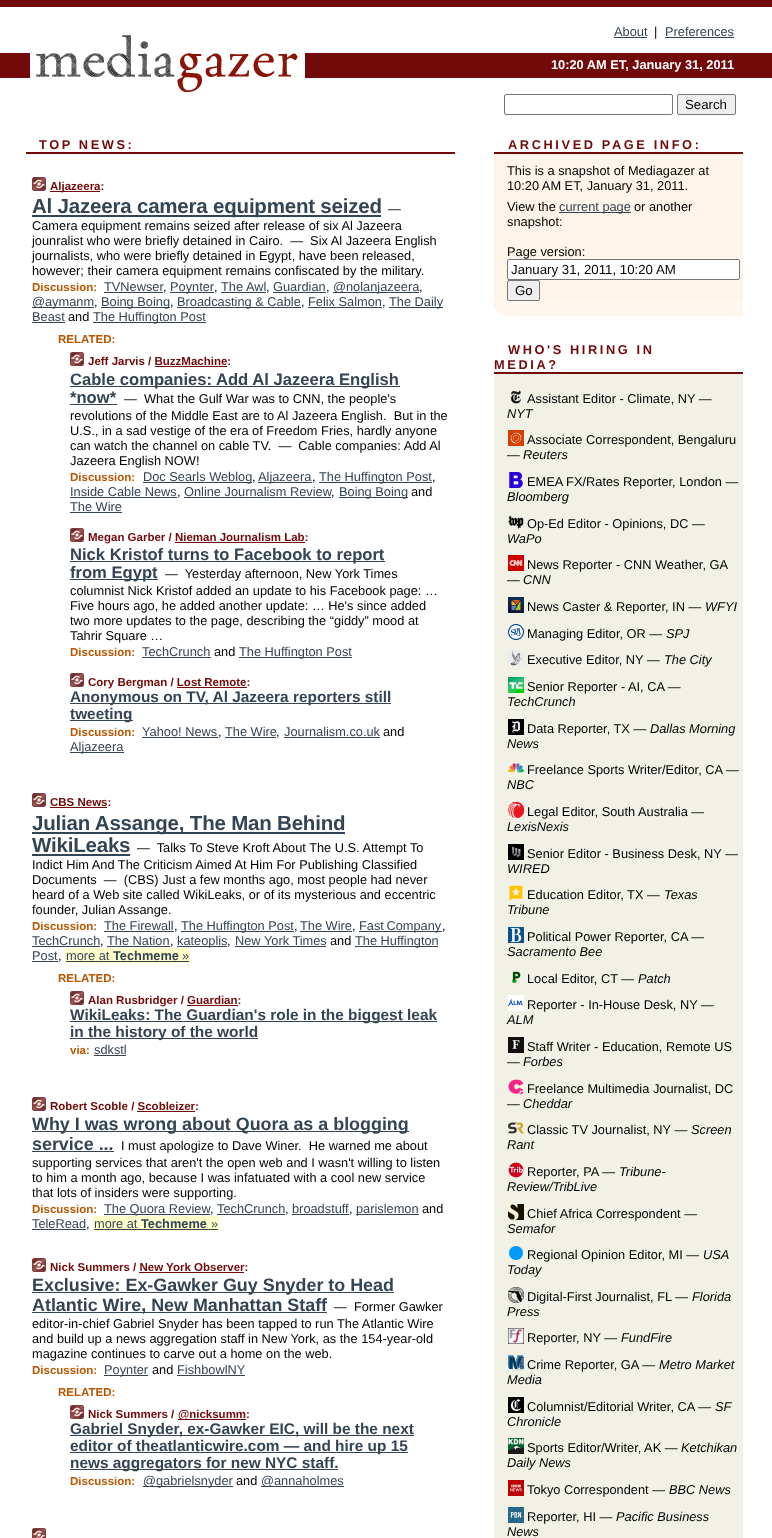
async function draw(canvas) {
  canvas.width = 772;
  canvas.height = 1538;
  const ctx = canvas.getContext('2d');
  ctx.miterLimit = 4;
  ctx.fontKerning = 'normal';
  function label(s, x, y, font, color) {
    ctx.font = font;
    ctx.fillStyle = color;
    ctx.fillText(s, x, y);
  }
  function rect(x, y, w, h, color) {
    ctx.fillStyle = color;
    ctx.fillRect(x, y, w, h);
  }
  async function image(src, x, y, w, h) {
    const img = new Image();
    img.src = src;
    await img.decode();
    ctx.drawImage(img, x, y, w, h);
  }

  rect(0, 0, 772, 1538, '#fff');
  rect(0, 0, 772, 7, '#730a0a');
  label('About', 614, 36, '12.8px Liberation Sans', '#345');
  rect(614, 37, 33, 1, '#345');
  label('|', 654, 36, '12.8px Liberation Sans', '#000');
  label('Preferences', 665, 36, '12.8px Liberation Sans', '#345');
  rect(665, 37, 69, 1, '#345');
  rect(0, 53, 772, 25, '#730a0a');
  rect(30, 53, 275, 25, '#fff');
  await image('assets/img1.png', 36, 35, 262, 57);
  label('10:20 AM ET, January 31, 2011', 551, 69, 'bold 12.8px Liberation Sans', '#fff');
  ctx.beginPath();
  ctx.roundRect(504.5, 94.5, 168, 20, 1.5);
  ctx.strokeStyle = '#767676';
  ctx.stroke();
  ctx.fillStyle = '#efefef';
  ctx.beginPath();
  ctx.roundRect(677.5, 94.5, 58, 20, 1.5);
  ctx.fill();
  ctx.stroke();
  label('Search', 685, 109, '13.25px Liberation Sans', '#000');
  rect(26, 152, 429, 2, '#730a0a');
  ctx.letterSpacing = '2.6px';
  label('TOP NEWS:', 39, 149, 'bold 12.8px Liberation Sans', '#730a0a');
  await image('assets/img2.png', 32, 177, 14, 14);
  rect(50, 191, 50, 1, '#730a0a');
  ctx.letterSpacing = '0px';
  label('Aljazeera:', 50, 190, 'bold 11.5px Liberation Sans', '#730a0a');
  rect(32, 215, 349, 2, '#345');
  ctx.letterSpacing = '-0.2px';
  label('Al Jazeera camera equipment seized', 32, 213, 'bold 20.5px Liberation Sans', '#345');
  ctx.letterSpacing = '0px';
  label('—', 388, 213, '12.8px Liberation Sans', '#000');
  label('Camera equipment remains seized after release of six Al Jazeera', 32, 230, '12.8px Liberation Sans', '#000');
  label('jounralist who were briefly detained in Cairo.  —  Six Al Jazeera English', 32, 245, '12.8px Liberation Sans', '#000');
  label('journalists, who were briefly detained in Egypt, have been released,', 32, 260, '12.8px Liberation Sans', '#000');
  label('however; their camera equipment remains confiscated by the military.', 32, 275, '12.8px Liberation Sans', '#000');
  label('Discussion:', 32, 291, 'bold 11.5px Liberation Sans', '#b50');
  label('TVNewser', 104, 291, '12.8px Liberation Sans', '#345');
  label(',', 163, 291, '12.8px Liberation Sans', '#000');
  rect(104, 292, 59, 1, '#345');
  rect(170, 292, 44, 1, '#345');
  label('Poynter', 170, 291, '12.8px Liberation Sans', '#345');
  label(',', 214, 291, '12.8px Liberation Sans', '#000');
  label('The Awl', 221, 291, '12.8px Liberation Sans', '#345');
  label(',', 266, 291, '12.8px Liberation Sans', '#000');
  rect(221, 292, 45, 1, '#345');
  label('Guardian', 273, 291, '12.8px Liberation Sans', '#345');
  label(',', 326, 291, '12.8px Liberation Sans', '#000');
  rect(273, 292, 53, 1, '#345');
  rect(333, 292, 86, 1, '#345');
  label('@nolanjazeera', 333, 291, '12.8px Liberation Sans', '#345');
  label(',', 419, 291, '12.8px Liberation Sans', '#000');
  rect(32, 307, 62, 1, '#345');
  label('@aymanm', 32, 306, '12.8px Liberation Sans', '#345');
  label(',', 94, 306, '12.8px Liberation Sans', '#000');
  rect(101, 307, 69, 1, '#345');
  label('Boing Boing', 101, 306, '12.8px Liberation Sans', '#345');
  label(',', 170, 306, '12.8px Liberation Sans', '#000');
  rect(177, 307, 124, 1, '#345');
  label('Broadcasting & Cable', 177, 306, '12.8px Liberation Sans', '#345');
  label(',', 301, 306, '12.8px Liberation Sans', '#000');
  label('Felix Salmon', 308, 306, '12.8px Liberation Sans', '#345');
  label(',', 382, 306, '12.8px Liberation Sans', '#000');
  rect(308, 307, 74, 1, '#345');
  rect(389, 307, 54, 1, '#345');
  label('The Daily', 389, 306, '12.8px Liberation Sans', '#345');
  label('Beast', 32, 321, '12.8px Liberation Sans', '#345');
  rect(32, 322, 33, 1, '#345');
  label('and', 68, 321, '12.8px Liberation Sans', '#000');
  rect(93, 322, 113, 1, '#345');
  label('The Huffington Post', 93, 321, '12.8px Liberation Sans', '#345');
  label('RELATED:', 58, 343, 'bold 11.5px Liberation Sans', '#b50');
  await image('assets/img2.png', 70, 352, 14, 14);
  label('Jeff Jarvis / BuzzMachine:', 88, 365, 'bold 11.5px Liberation Sans', '#730a0a');
  rect(155, 366, 72, 1, '#730a0a');
  rect(70, 386, 330, 1, '#345');
  label('Cable companies: Add Al Jazeera English', 70, 385, 'bold 16.6px Liberation Sans', '#345');
  label('*now*', 70, 403, 'bold 16.6px Liberation Sans', '#345');
  rect(70, 404, 47, 1, '#345');
  label('—  What the Gulf War was to CNN, the people\'s', 124, 403, '12.8px Liberation Sans', '#000');
  label('revolutions of the Middle East are to Al Jazeera English.  But in the', 70, 420, '12.8px Liberation Sans', '#000');
  label('U.S., in a sad vestige of the era of Freedom Fries, hardly anyone', 70, 435, '12.8px Liberation Sans', '#000');
  label('can watch the channel on cable TV.  —  Cable companies: Add Al', 70, 450, '12.8px Liberation Sans', '#000');
  label('Jazeera English NOW!', 70, 465, '12.8px Liberation Sans', '#000');
  label('Discussion:', 70, 481, 'bold 11.5px Liberation Sans', '#b50');
  rect(143, 482, 109, 1, '#345');
  label('Doc Searls Weblog', 143, 481, '12.8px Liberation Sans', '#345');
  label(',', 252, 481, '12.8px Liberation Sans', '#000');
  rect(258, 482, 54, 1, '#345');
  label('Aljazeera', 258, 481, '12.8px Liberation Sans', '#345');
  label(',', 312, 481, '12.8px Liberation Sans', '#000');
  rect(319, 482, 113, 1, '#345');
  label('The Huffington Post', 319, 481, '12.8px Liberation Sans', '#345');
  label(',', 432, 481, '12.8px Liberation Sans', '#000');
  label('Inside Cable News', 70, 496, '12.8px Liberation Sans', '#345');
  label(',', 177, 496, '12.8px Liberation Sans', '#000');
  rect(70, 497, 107, 1, '#345');
  label('Online Journalism Review', 184, 496, '12.8px Liberation Sans', '#345');
  label(',', 331, 496, '12.8px Liberation Sans', '#000');
  rect(184, 497, 147, 1, '#345');
  rect(339, 497, 69, 1, '#345');
  label('Boing Boing', 339, 496, '12.8px Liberation Sans', '#345');
  label('and', 411, 496, '12.8px Liberation Sans', '#000');
  label('The Wire', 70, 511, '12.8px Liberation Sans', '#345');
  rect(70, 512, 52, 1, '#345');
  await image('assets/img2.png', 70, 528, 14, 14);
  label('Megan Garber / Nieman Journalism Lab:', 88, 541, 'bold 11.5px Liberation Sans', '#730a0a');
  rect(175, 542, 130, 1, '#730a0a');
  rect(70, 561, 315, 1, '#345');
  label('Nick Kristof turns to Facebook to report', 70, 560, 'bold 16.6px Liberation Sans', '#345');
  rect(70, 579, 88, 1, '#345');
  label('from Egypt', 70, 578, 'bold 16.6px Liberation Sans', '#345');
  label('—  Yesterday afternoon, New York Times', 165, 578, '12.8px Liberation Sans', '#000');
  label('columnist Nick Kristof added an update to his Facebook page: …', 70, 595, '12.8px Liberation Sans', '#000');
  label('Five hours ago, he added another update: … He\'s since added', 70, 610, '12.8px Liberation Sans', '#000');
  label('two more updates to the page, describing the “giddy” mood at', 70, 625, '12.8px Liberation Sans', '#000');
  label('Tahrir Square …', 70, 640, '12.8px Liberation Sans', '#000');
  label('Discussion:', 70, 656, 'bold 11.5px Liberation Sans', '#b50');
  label('TechCrunch', 142, 656, '12.8px Liberation Sans', '#345');
  rect(142, 657, 69, 1, '#345');
  label('and', 214, 656, '12.8px Liberation Sans', '#000');
  rect(239, 657, 113, 1, '#345');
  label('The Huffington Post', 239, 656, '12.8px Liberation Sans', '#345');
  await image('assets/img2.png', 70, 673, 14, 14);
  label('Cory Bergman / Lost Remote:', 88, 686, 'bold 11.5px Liberation Sans', '#730a0a');
  rect(177, 687, 70, 1, '#730a0a');
  rect(70, 703, 321, 1, '#345');
  label('Anonymous on TV, Al Jazeera reporters still', 70, 702, 'bold 15.4px Liberation Sans', '#345');
  rect(70, 720, 63, 1, '#345');
  label('tweeting', 70, 719, 'bold 15.4px Liberation Sans', '#345');
  label('Discussion:', 70, 736, 'bold 11.5px Liberation Sans', '#b50');
  label('Yahoo! News', 142, 736, '12.8px Liberation Sans', '#345');
  label(',', 218, 736, '12.8px Liberation Sans', '#000');
  rect(142, 737, 76, 1, '#345');
  label('The Wire', 225, 736, '12.8px Liberation Sans', '#345');
  label(',', 276, 736, '12.8px Liberation Sans', '#000');
  rect(225, 737, 51, 1, '#345');
  rect(284, 737, 96, 1, '#345');
  label('Journalism.co.uk', 284, 736, '12.8px Liberation Sans', '#345');
  label('and', 383, 736, '12.8px Liberation Sans', '#000');
  rect(70, 752, 54, 1, '#345');
  label('Aljazeera', 70, 751, '12.8px Liberation Sans', '#345');
  await image('assets/img2.png', 32, 793, 14, 14);
  label('CBS News:', 50, 806, 'bold 11.5px Liberation Sans', '#730a0a');
  rect(50, 807, 57, 1, '#730a0a');
  rect(32, 832, 313, 2, '#345');
  ctx.letterSpacing = '-0.2px';
  label('Julian Assange, The Man Behind', 32, 830, 'bold 20.5px Liberation Sans', '#345');
  label('WikiLeaks', 32, 852, 'bold 20.5px Liberation Sans', '#345');
  rect(32, 854, 98, 2, '#345');
  ctx.letterSpacing = '0px';
  label('—  Talks To Steve Kroft About The U.S. Attempt To', 137, 852, '12.8px Liberation Sans', '#000');
  label('Indict Him And The Criticism Aimed At Him For Publishing Classified', 32, 869, '12.8px Liberation Sans', '#000');
  label('Documents  —  (CBS) Just a few months ago, most people had never', 32, 884, '12.8px Liberation Sans', '#000');
  label('heard of a Web site called WikiLeaks, or of its mysterious and eccentric', 32, 899, '12.8px Liberation Sans', '#000');
  label('founder, Julian Assange.', 32, 914, '12.8px Liberation Sans', '#000');
  label('Discussion:', 32, 930, 'bold 11.5px Liberation Sans', '#b50');
  label('The Firewall', 104, 930, '12.8px Liberation Sans', '#345');
  label(',', 174, 930, '12.8px Liberation Sans', '#000');
  rect(104, 931, 70, 1, '#345');
  rect(181, 931, 113, 1, '#345');
  label('The Huffington Post', 181, 930, '12.8px Liberation Sans', '#345');
  label(',', 294, 930, '12.8px Liberation Sans', '#000');
  label('The Wire', 300, 930, '12.8px Liberation Sans', '#345');
  label(',', 352, 930, '12.8px Liberation Sans', '#000');
  rect(300, 931, 52, 1, '#345');
  rect(359, 931, 83, 1, '#345');
  ctx.wordSpacing = '-1px';
  label('Fast Company', 359, 930, '12.8px Liberation Sans', '#345');
  ctx.wordSpacing = '0px';
  label(',', 442, 930, '12.8px Liberation Sans', '#000');
  label('TechCrunch', 32, 945, '12.8px Liberation Sans', '#345');
  label(',', 100, 945, '12.8px Liberation Sans', '#000');
  rect(32, 946, 68, 1, '#345');
  label('The Nation', 107, 945, '12.8px Liberation Sans', '#345');
  label(',', 170, 945, '12.8px Liberation Sans', '#000');
  rect(107, 946, 63, 1, '#345');
  rect(177, 946, 50, 1, '#345');
  label('kateoplis', 177, 945, '12.8px Liberation Sans', '#345');
  label(',', 227, 945, '12.8px Liberation Sans', '#000');
  rect(235, 946, 91, 1, '#345');
  label('New York Times', 235, 945, '12.8px Liberation Sans', '#345');
  label('and', 330, 945, '12.8px Liberation Sans', '#000');
  rect(355, 946, 83, 1, '#345');
  label('The Huffington', 355, 945, '12.8px Liberation Sans', '#345');
  label('Post', 32, 960, '12.8px Liberation Sans', '#345');
  label(',', 58, 960, '12.8px Liberation Sans', '#000');
  rect(32, 961, 26, 1, '#345');
  rect(65, 948, 125, 15, '#ffc');
  rect(66, 961, 123, 1, '#345');
  label('more at', 66, 960, '12.8px Liberation Sans', '#345');
  label('Techmeme', 113, 960, 'bold 12.8px Liberation Sans', '#345');
  label('»', 182, 960, '12.8px Liberation Sans', '#345');
  label('RELATED:', 58, 982, 'bold 11.5px Liberation Sans', '#b50');
  await image('assets/img2.png', 70, 991, 14, 14);
  label('Alan Rusbridger / Guardian:', 88, 1004, 'bold 11.5px Liberation Sans', '#730a0a');
  rect(187, 1005, 51, 1, '#730a0a');
  rect(70, 1021, 367, 1, '#345');
  label('WikiLeaks: The Guardian\'s role in the biggest leak', 70, 1020, 'bold 15.4px Liberation Sans', '#345');
  rect(70, 1038, 188, 1, '#345');
  label('in the history of the world', 70, 1037, 'bold 15.4px Liberation Sans', '#345');
  label('via:', 70, 1054, 'bold 11.5px Liberation Sans', '#b50');
  label('sdkstl', 94, 1054, '12.8px Liberation Sans', '#345');
  rect(94, 1055, 32, 1, '#345');
  await image('assets/img2.png', 32, 1097, 14, 14);
  label('Robert Scoble / Scobleizer:', 50, 1110, 'bold 11.5px Liberation Sans', '#730a0a');
  rect(137, 1111, 58, 1, '#730a0a');
  rect(32, 1131, 377, 1, '#345');
  label('Why I was wrong about Quora as a blogging', 32, 1130, 'bold 17.9px Liberation Sans', '#345');
  label('service ...', 32, 1150, 'bold 17.9px Liberation Sans', '#345');
  rect(32, 1151, 82, 1, '#345');
  label('I must apologize to Dave Winer.  He warned me about', 121, 1150, '12.8px Liberation Sans', '#000');
  label('supporting services that aren\'t the open web and I wasn\'t willing to listen', 32, 1167, '12.8px Liberation Sans', '#000');
  label('to him a month ago, because I was infatuated with a cool new service', 32, 1182, '12.8px Liberation Sans', '#000');
  label('that lots of insiders were supporting.', 32, 1197, '12.8px Liberation Sans', '#000');
  label('Discussion:', 32, 1213, 'bold 11.5px Liberation Sans', '#b50');
  rect(104, 1214, 106, 1, '#345');
  label('The Quora Review', 104, 1213, '12.8px Liberation Sans', '#345');
  label(',', 210, 1213, '12.8px Liberation Sans', '#000');
  label('TechCrunch', 217, 1213, '12.8px Liberation Sans', '#345');
  label(',', 285, 1213, '12.8px Liberation Sans', '#000');
  rect(217, 1214, 68, 1, '#345');
  label('broadstuff', 292, 1213, '12.8px Liberation Sans', '#345');
  label(',', 349, 1213, '12.8px Liberation Sans', '#000');
  rect(292, 1214, 57, 1, '#345');
  rect(356, 1214, 63, 1, '#345');
  label('parislemon', 356, 1213, '12.8px Liberation Sans', '#345');
  label('and', 422, 1213, '12.8px Liberation Sans', '#000');
  label('TeleRead', 32, 1228, '12.8px Liberation Sans', '#345');
  label(',', 86, 1228, '12.8px Liberation Sans', '#000');
  rect(32, 1229, 54, 1, '#345');
  rect(93, 1216, 126, 15, '#ffc');
  rect(94, 1229, 124, 1, '#345');
  label('more at', 94, 1228, '12.8px Liberation Sans', '#345');
  label('Techmeme', 141, 1228, 'bold 12.8px Liberation Sans', '#345');
  label('»', 211, 1228, '12.8px Liberation Sans', '#345');
  await image('assets/img2.png', 32, 1258, 14, 14);
  label('Nick Summers / New York Observer:', 50, 1271, 'bold 11.5px Liberation Sans', '#730a0a');
  rect(139, 1272, 105, 1, '#730a0a');
  rect(32, 1292, 362, 1, '#345');
  label('Exclusive: Ex-Gawker Guy Snyder to Head', 32, 1291, 'bold 17.9px Liberation Sans', '#345');
  rect(32, 1312, 295, 1, '#345');
  label('Atlantic Wire, New Manhattan Staff', 32, 1311, 'bold 17.9px Liberation Sans', '#345');
  label('—  Former Gawker', 334, 1311, '12.8px Liberation Sans', '#000');
  label('editor-in-chief Gabriel Snyder has been tapped to run The Atlantic Wire', 32, 1328, '12.8px Liberation Sans', '#000');
  label('and build up a news aggregation staff in New York, as the 154-year-old', 32, 1343, '12.8px Liberation Sans', '#000');
  label('magazine continues to carve out a home on the web.', 32, 1358, '12.8px Liberation Sans', '#000');
  label('Discussion:', 32, 1374, 'bold 11.5px Liberation Sans', '#b50');
  rect(104, 1375, 44, 1, '#345');
  label('Poynter', 104, 1374, '12.8px Liberation Sans', '#345');
  label('and', 152, 1374, '12.8px Liberation Sans', '#000');
  label('FishbowlNY', 177, 1374, '12.8px Liberation Sans', '#345');
  rect(177, 1375, 68, 1, '#345');
  label('RELATED:', 58, 1396, 'bold 11.5px Liberation Sans', '#b50');
  await image('assets/img2.png', 70, 1405, 14, 14);
  label('Nick Summers /', 88, 1418, 'bold 11.5px Liberation Sans', '#730a0a');
  rect(178, 1419, 68, 1, '#730a0a');
  label('@nicksumm:', 178, 1418, 'bold 11.5px Liberation Sans', '#730a0a');
  rect(70, 1435, 344, 1, '#345');
  label('Gabriel Snyder, ex-Gawker EIC, will be the next', 70, 1434, 'bold 15.4px Liberation Sans', '#345');
  rect(70, 1452, 338, 1, '#345');
  label('editor of theatlanticwire.com — and hire up 15', 70, 1451, 'bold 15.4px Liberation Sans', '#345');
  rect(70, 1469, 268, 1, '#345');
  label('news aggregators for new NYC staff.', 70, 1468, 'bold 15.4px Liberation Sans', '#345');
  label('Discussion:', 70, 1485, 'bold 11.5px Liberation Sans', '#b50');
  rect(143, 1486, 90, 1, '#345');
  label('@gabrielsnyder', 143, 1485, '12.8px Liberation Sans', '#345');
  label('and', 236, 1485, '12.8px Liberation Sans', '#000');
  rect(261, 1486, 83, 1, '#345');
  label('@annaholmes', 261, 1485, '12.8px Liberation Sans', '#345');
  await image('assets/img3.png', 32, 1528, 14, 10);
  rect(494, 152, 249, 2, '#730a0a');
  ctx.letterSpacing = '2.6px';
  label('ARCHIVED PAGE INFO:', 508, 149, 'bold 12.8px Liberation Sans', '#730a0a');
  rect(494, 154, 249, 147, '#fef4e9');
  ctx.letterSpacing = '0px';
  label('This is a snapshot of Mediagazer at', 507, 175, '12.8px Liberation Sans', '#000');
  label('10:20 AM ET, January 31, 2011.', 507, 190, '12.8px Liberation Sans', '#000');
  label('View the', 507, 211, '12.8px Liberation Sans', '#000');
  rect(559, 212, 72, 1, '#345');
  label('current page', 559, 211, '12.8px Liberation Sans', '#345');
  label('or another', 634, 211, '12.8px Liberation Sans', '#000');
  label('snapshot:', 507, 226, '12.8px Liberation Sans', '#000');
  label('Page version:', 507, 256, '12.8px Liberation Sans', '#000');
  ctx.fillStyle = '#fff';
  ctx.beginPath();
  ctx.roundRect(507.5, 259.5, 232, 20, 1.5);
  ctx.fill();
  ctx.stroke();
  label('January 31, 2011, 10:20 AM', 511, 274, '13.25px Liberation Sans', '#000');
  ctx.fillStyle = '#efefef';
  ctx.beginPath();
  ctx.roundRect(507.5, 280.5, 32, 20, 1.5);
  ctx.fill();
  ctx.stroke();
  label('Go', 515, 295, '13.25px Liberation Sans', '#000');
  await image('assets/img4.png', 494, 301, 249, 15);
  rect(494, 372, 249, 2, '#730a0a');
  ctx.letterSpacing = '2.6px';
  label('WHO\'S HIRING IN', 508, 354, 'bold 12.8px Liberation Sans', '#730a0a');
  label('MEDIA?', 494, 369, 'bold 12.8px Liberation Sans', '#730a0a');
  rect(494, 374, 249, 1164, '#f1f1e6');
  await image('assets/img5.png', 510, 390, 11, 14);
  ctx.letterSpacing = '0px';
  label('Assistant Editor - Climate, NY —', 527, 403, '12.8px Liberation Sans', '#000');
  label('NYT', 507, 418, 'italic 12.8px Liberation Sans', '#000');
  await image('assets/img6.png', 508, 430, 16, 16);
  label('Associate Correspondent, Bengaluru', 527, 444, '12.8px Liberation Sans', '#000');
  label('—', 507, 459, '12.8px Liberation Sans', '#000');
  label('Reuters', 523, 459, 'italic 12.8px Liberation Sans', '#000');
  await image('assets/img7.png', 509, 472, 14, 16);
  label('EMEA FX/Rates Reporter, London —', 527, 486, '12.8px Liberation Sans', '#000');
  label('Bloomberg', 507, 501, 'italic 12.8px Liberation Sans', '#000');
  await image('assets/img8.png', 508, 515, 16, 14);
  label('Op-Ed Editor - Opinions, DC —', 527, 528, '12.8px Liberation Sans', '#000');
  label('WaPo', 507, 543, 'italic 12.8px Liberation Sans', '#000');
  await image('assets/img9.png', 508, 555, 16, 16);
  label('News Reporter - CNN Weather, GA', 527, 569, '12.8px Liberation Sans', '#000');
  label('—', 507, 584, '12.8px Liberation Sans', '#000');
  label('CNN', 523, 584, 'italic 12.8px Liberation Sans', '#000');
  await image('assets/img10.png', 508, 597, 16, 16);
  label('News Caster & Reporter, IN —', 527, 611, '12.8px Liberation Sans', '#000');
  label('WFYI', 705, 611, 'italic 12.8px Liberation Sans', '#000');
  await image('assets/img11.png', 508, 624, 16, 16);
  label('Managing Editor, OR —', 527, 638, '12.8px Liberation Sans', '#000');
  label('SPJ', 666, 638, 'italic 12.8px Liberation Sans', '#000');
  await image('assets/img12.png', 508, 650, 16, 16);
  label('Executive Editor, NY —', 527, 664, '12.8px Liberation Sans', '#000');
  label('The City', 664, 664, 'italic 12.8px Liberation Sans', '#000');
  await image('assets/img13.png', 508, 677, 16, 16);
  label('Senior Reporter - AI, CA —', 527, 691, '12.8px Liberation Sans', '#000');
  label('TechCrunch', 507, 706, 'italic 12.8px Liberation Sans', '#000');
  await image('assets/img14.png', 508, 719, 16, 16);
  label('Data Reporter, TX —', 527, 733, '12.8px Liberation Sans', '#000');
  label('Dallas Morning', 650, 733, 'italic 12.8px Liberation Sans', '#000');
  label('News', 507, 748, 'italic 12.8px Liberation Sans', '#000');
  await image('assets/img15.png', 508, 762, 16, 11);
  label('Freelance Sports Writer/Editor, CA —', 527, 774, '12.8px Liberation Sans', '#000');
  label('NBC', 507, 789, 'italic 12.8px Liberation Sans', '#000');
  await image('assets/img16.png', 508, 802, 16, 16);
  label('Legal Editor, South Australia —', 527, 816, '12.8px Liberation Sans', '#000');
  label('LexisNexis', 507, 831, 'italic 12.8px Liberation Sans', '#000');
  await image('assets/img17.png', 508, 844, 16, 16);
  label('Senior Editor - Business Desk, NY —', 527, 858, '12.8px Liberation Sans', '#000');
  label('WIRED', 507, 873, 'italic 12.8px Liberation Sans', '#000');
  await image('assets/img18.png', 509, 885, 14, 16);
  label('Education Editor, TX —', 527, 899, '12.8px Liberation Sans', '#000');
  label('Texas', 664, 899, 'italic 12.8px Liberation Sans', '#000');
  label('Tribune', 507, 914, 'italic 12.8px Liberation Sans', '#000');
  await image('assets/img19.png', 508, 927, 16, 16);
  label('Political Power Reporter, CA —', 527, 941, '12.8px Liberation Sans', '#000');
  label('Sacramento Bee', 507, 956, 'italic 12.8px Liberation Sans', '#000');
  await image('assets/img20.png', 511, 971, 10, 13);
  label('Local Editor, CT —', 527, 983, '12.8px Liberation Sans', '#000');
  label('Patch', 638, 983, 'italic 12.8px Liberation Sans', '#000');
  await image('assets/img21.png', 508, 995, 16, 16);
  label('Reporter - In-House Desk, NY —', 527, 1009, '12.8px Liberation Sans', '#000');
  label('ALM', 507, 1024, 'italic 12.8px Liberation Sans', '#000');
  await image('assets/img22.png', 508, 1037, 16, 16);
  label('Staff Writer - Education, Remote US', 527, 1051, '12.8px Liberation Sans', '#000');
  label('—', 507, 1066, '12.8px Liberation Sans', '#000');
  label('Forbes', 523, 1066, 'italic 12.8px Liberation Sans', '#000');
  await image('assets/img23.png', 508, 1079, 16, 16);
  label('Freelance Multimedia Journalist, DC', 527, 1093, '12.8px Liberation Sans', '#000');
  label('—', 507, 1108, '12.8px Liberation Sans', '#000');
  label('Cheddar', 523, 1108, 'italic 12.8px Liberation Sans', '#000');
  await image('assets/img24.png', 508, 1122, 16, 12);
  label('Classic TV Journalist, NY —', 527, 1134, '12.8px Liberation Sans', '#000');
  label('Screen', 691, 1134, 'italic 12.8px Liberation Sans', '#000');
  label('Rant', 507, 1149, 'italic 12.8px Liberation Sans', '#000');
  await image('assets/img25.png', 508, 1162, 16, 16);
  label('Reporter, PA —', 527, 1176, '12.8px Liberation Sans', '#000');
  label('Tribune-', 619, 1176, 'italic 12.8px Liberation Sans', '#000');
  label('Review/TribLive', 507, 1191, 'italic 12.8px Liberation Sans', '#000');
  await image('assets/img26.png', 508, 1204, 16, 16);
  label('Chief Africa Correspondent —', 527, 1218, '12.8px Liberation Sans', '#000');
  label('Semafor', 507, 1233, 'italic 12.8px Liberation Sans', '#000');
  await image('assets/img27.png', 509, 1246, 14, 14);
  label('Regional Opinion Editor, MI —', 527, 1259, '12.8px Liberation Sans', '#000');
  label('USA', 703, 1259, 'italic 12.8px Liberation Sans', '#000');
  label('Today', 507, 1274, 'italic 12.8px Liberation Sans', '#000');
  await image('assets/img28.png', 508, 1287, 16, 16);
  label('Digital-First Journalist, FL —', 527, 1301, '12.8px Liberation Sans', '#000');
  label('Florida', 692, 1301, 'italic 12.8px Liberation Sans', '#000');
  label('Press', 507, 1316, 'italic 12.8px Liberation Sans', '#000');
  await image('assets/img29.png', 508, 1328, 16, 16);
  label('Reporter, NY —', 527, 1342, '12.8px Liberation Sans', '#000');
  label('FundFire', 621, 1342, 'italic 12.8px Liberation Sans', '#000');
  await image('assets/img30.png', 508, 1355, 16, 16);
  label('Crime Reporter, GA —', 527, 1369, '12.8px Liberation Sans', '#000');
  label('Metro Market', 659, 1369, 'italic 12.8px Liberation Sans', '#000');
  label('Media', 507, 1384, 'italic 12.8px Liberation Sans', '#000');
  await image('assets/img31.png', 508, 1397, 16, 16);
  label('Columnist/Editorial Writer, CA —', 527, 1411, '12.8px Liberation Sans', '#000');
  label('SF', 715, 1411, 'italic 12.8px Liberation Sans', '#000');
  label('Chronicle', 507, 1426, 'italic 12.8px Liberation Sans', '#000');
  await image('assets/img32.png', 508, 1438, 16, 16);
  label('Sports Editor/Writer, AK —', 527, 1452, '12.8px Liberation Sans', '#000');
  label('Ketchikan', 681, 1452, 'italic 12.8px Liberation Sans', '#000');
  label('Daily News', 507, 1467, 'italic 12.8px Liberation Sans', '#000');
  await image('assets/img33.png', 508, 1480, 16, 16);
  label('Tokyo Correspondent —', 527, 1494, '12.8px Liberation Sans', '#000');
  label('BBC News', 669, 1494, 'italic 12.8px Liberation Sans', '#000');
  await image('assets/img34.png', 508, 1507, 16, 16);
  label('Reporter, HI —', 527, 1521, '12.8px Liberation Sans', '#000');
  label('Pacific Business', 616, 1521, 'italic 12.8px Liberation Sans', '#000');
  label('News', 507, 1536, 'italic 12.8px Liberation Sans', '#000');
}

draw(document.querySelector('canvas'));
